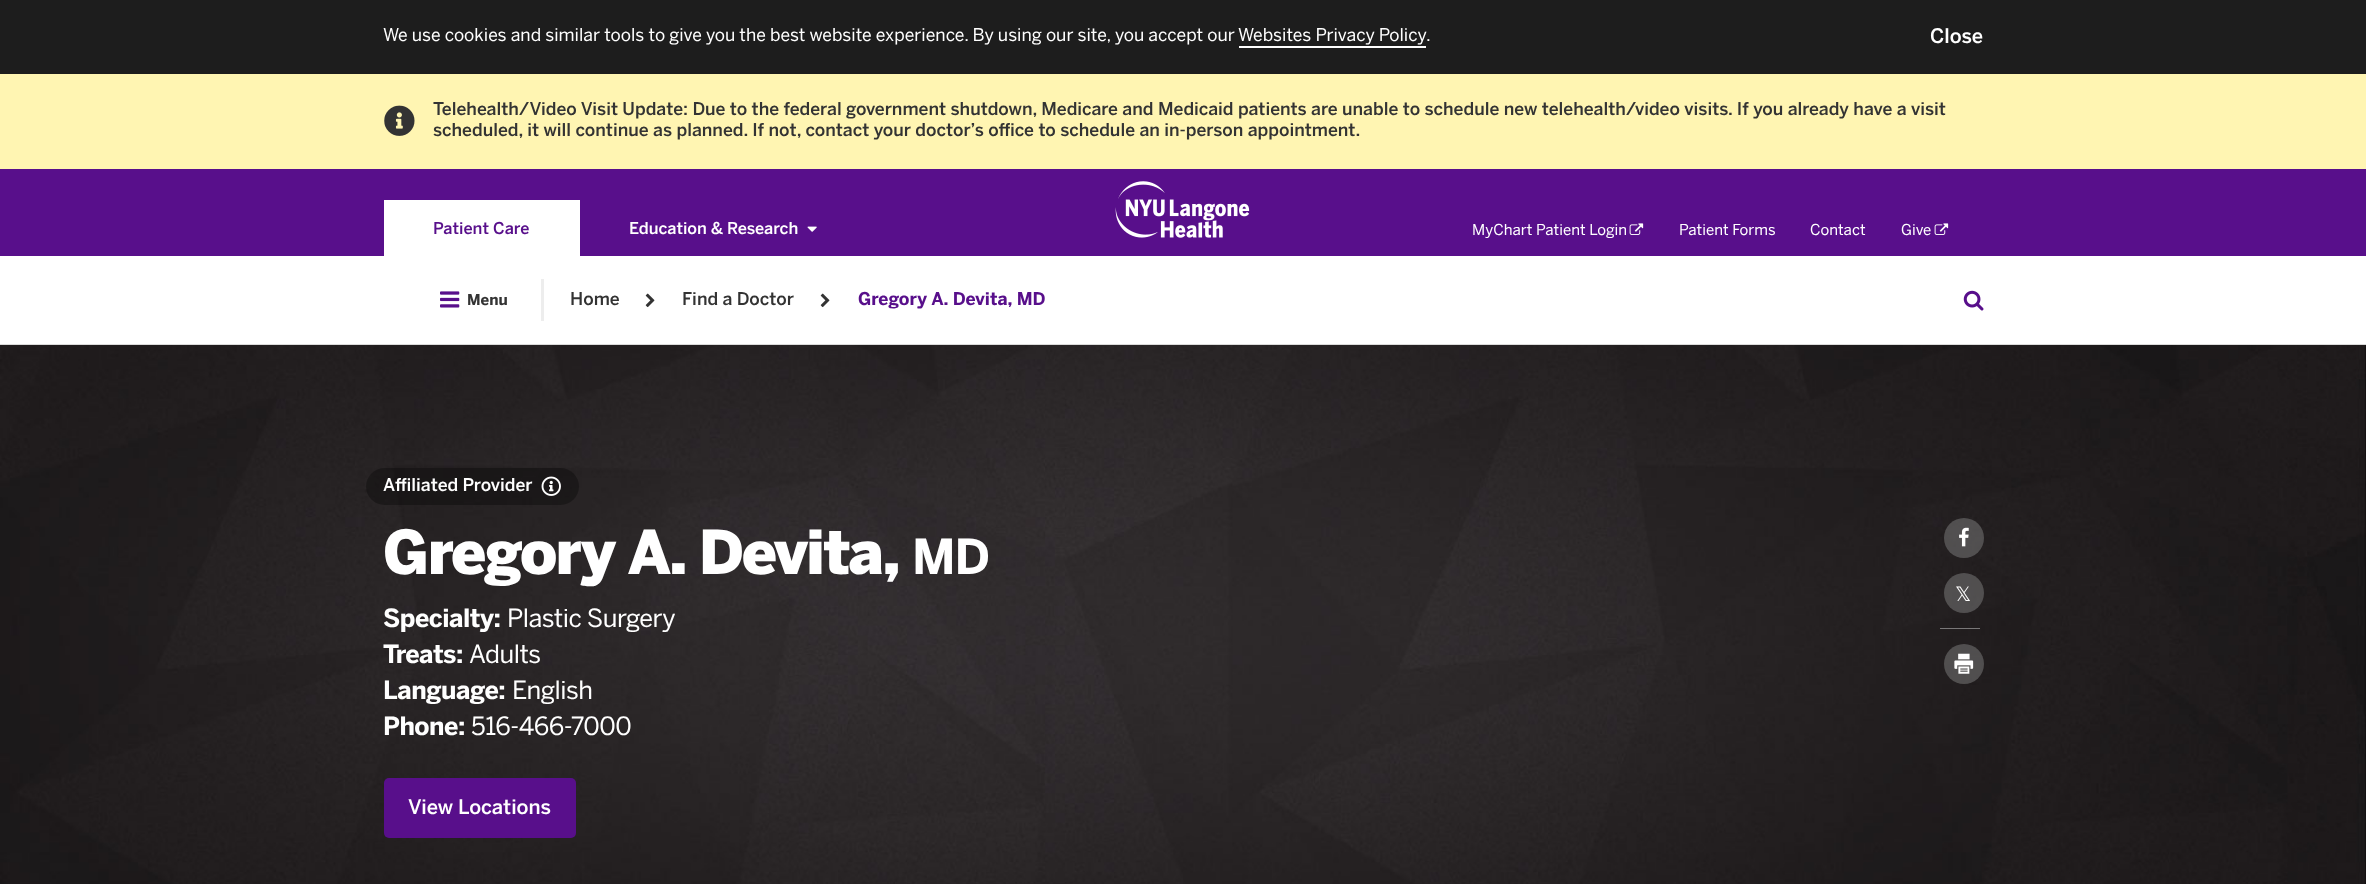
async function draw(canvas) {
  canvas.width = 2366;
  canvas.height = 884;
  const ctx = canvas.getContext('2d');
  ctx.miterLimit = 4;
  ctx.fontKerning = 'normal';
  function label(s, x, y, font, color) {
    ctx.font = font;
    ctx.fillStyle = color;
    ctx.fillText(s, x, y);
  }
  function rect(x, y, w, h, color) {
    ctx.fillStyle = color;
    ctx.fillRect(x, y, w, h);
  }
  function roundedRect(x, y, w, h, r, color) {
    ctx.fillStyle = color;
    ctx.beginPath();
    ctx.roundRect(x, y, w, h, r);
    ctx.fill();
  }
  async function image(src, x, y, w, h) {
    const img = new Image();
    img.src = src;
    await img.decode();
    ctx.drawImage(img, x, y, w, h);
  }

  rect(0, 0, 2366, 884, '#fff');
  rect(0, 0, 2366, 74, '#1d1d1d');
  label('We use cookies and similar tools to give you the best website experience. By using our site, you accept our', 383, 41, '17.5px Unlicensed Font', '#fff');
  label('Websites Privacy Policy', 1238, 41, '17.5px Unlicensed Font', '#fff');
  rect(1239, 46, 187, 2, '#fff');
  label('.', 1426, 41, '17.5px Unlicensed Font', '#fff');
  label('Close', 1930, 43, '500 20px Unlicensed Font', '#fff');
  rect(0, 74, 2366, 95, '#fff5b2');
  await image('assets/img1.png', 384, 105, 31, 31);
  label('Telehealth/Video Visit Update: Due to the federal government shutdown, Medicare and Medicaid patients are unable to schedule new telehealth/video visits. If you already have a visit', 433, 115, '500 17.5px Unlicensed Font', '#333');
  label('scheduled, it will continue as planned. If not, contact your doctor’s office to schedule an in-person appointment.', 433, 136, '500 17.5px Unlicensed Font', '#333');
  rect(0, 169, 2366, 87, '#580f8b');
  rect(384, 200, 196, 56, '#fff');
  label('Patient Care', 433, 234, '500 16.25px Unlicensed Font', '#580f8b');
  label('Education & Research', 629, 234, '500 16.25px Unlicensed Font', '#fff');
  await image('assets/img2.png', 807, 226, 10, 6);
  await image('assets/img3.png', 1115, 181, 135, 57);
  label('MyChart Patient Login', 1472, 235, '15px Unlicensed Font', '#fff');
  await image('assets/img4.png', 1629, 223, 15, 12);
  label('Patient Forms', 1679, 235, '15px Unlicensed Font', '#fff');
  label('Contact', 1810, 235, '15px Unlicensed Font', '#fff');
  label('Give', 1901, 235, '15px Unlicensed Font', '#fff');
  await image('assets/img4.png', 1934, 223, 15, 12);
  rect(0, 344, 2366, 1, '#dbdbda');
  await image('assets/img5.png', 440, 291, 20, 17);
  label('Menu', 467, 305, 'bold 15px Unlicensed Font', '#333');
  rect(541, 279, 3, 42, '#ededed');
  label('Home', 570, 305, '500 17.5px Unlicensed Font', '#333');
  await image('assets/img6.png', 645, 293, 10, 15);
  label('Find a Doctor', 682, 305, '500 17.5px Unlicensed Font', '#333');
  await image('assets/img6.png', 820, 293, 10, 15);
  label('Gregory A. Devita, MD', 858, 305, 'bold 17.5px Unlicensed Font', '#580f8b');
  await image('assets/img7.png', 1963, 290, 21, 21);
  await image('assets/img8.png', 0, 345, 2366, 539);
  roundedRect(366, 468, 213, 37, 18.5, '#0000004d');
  label('Affiliated Provider', 383, 491, '500 17.5px Unlicensed Font', '#fff');
  await image('assets/img9.png', 541, 476, 20, 20);
  ctx.letterSpacing = '-1.7px';
  label('Gregory A. Devita', 383, 574, '800 60px Unlicensed Font', '#fff');
  label(',', 883, 574, '800 60px Unlicensed Font', '#fff');
  ctx.letterSpacing = '-1px';
  label('MD', 912, 574, 'bold 48px Unlicensed Font', '#fff');
  ctx.letterSpacing = '-0.5px';
  label('Specialty:', 383, 627, 'bold 25px Unlicensed Font', '#fff');
  label('Plastic Surgery', 507, 627, '25px Unlicensed Font', '#fff');
  label('Treats:', 383, 663, 'bold 25px Unlicensed Font', '#fff');
  label('Adults', 469, 663, '25px Unlicensed Font', '#fff');
  label('Language:', 383, 699, 'bold 25px Unlicensed Font', '#fff');
  label('English', 512, 699, '25px Unlicensed Font', '#fff');
  label('Phone:', 383, 735, 'bold 25px Unlicensed Font', '#fff');
  label('516-466-7000', 471, 735, '25px Unlicensed Font', '#fff');
  roundedRect(384, 778, 192, 60, 5, '#580f8b');
  ctx.letterSpacing = '0px';
  label('View Locations', 408, 814, '500 20px Unlicensed Font', '#fff');
  ctx.fillStyle = '#80808080';
  ctx.beginPath();
  ctx.arc(1964, 538, 20, 0, 2 * Math.PI);
  ctx.fill();
  await image('assets/img10.png', 1959, 527, 10, 20);
  ctx.beginPath();
  ctx.arc(1964, 593, 20, 0, 2 * Math.PI);
  ctx.fill();
  label('𝕏', 1955, 601, '20px DejaVu Sans', '#fff');
  rect(1940, 628, 40, 1, '#797778');
  ctx.fillStyle = '#80808080';
  ctx.beginPath();
  ctx.arc(1964, 664, 20, 0, 2 * Math.PI);
  ctx.fill();
  await image('assets/img11.png', 1954, 653, 20, 21);
}

draw(document.querySelector('canvas'));
